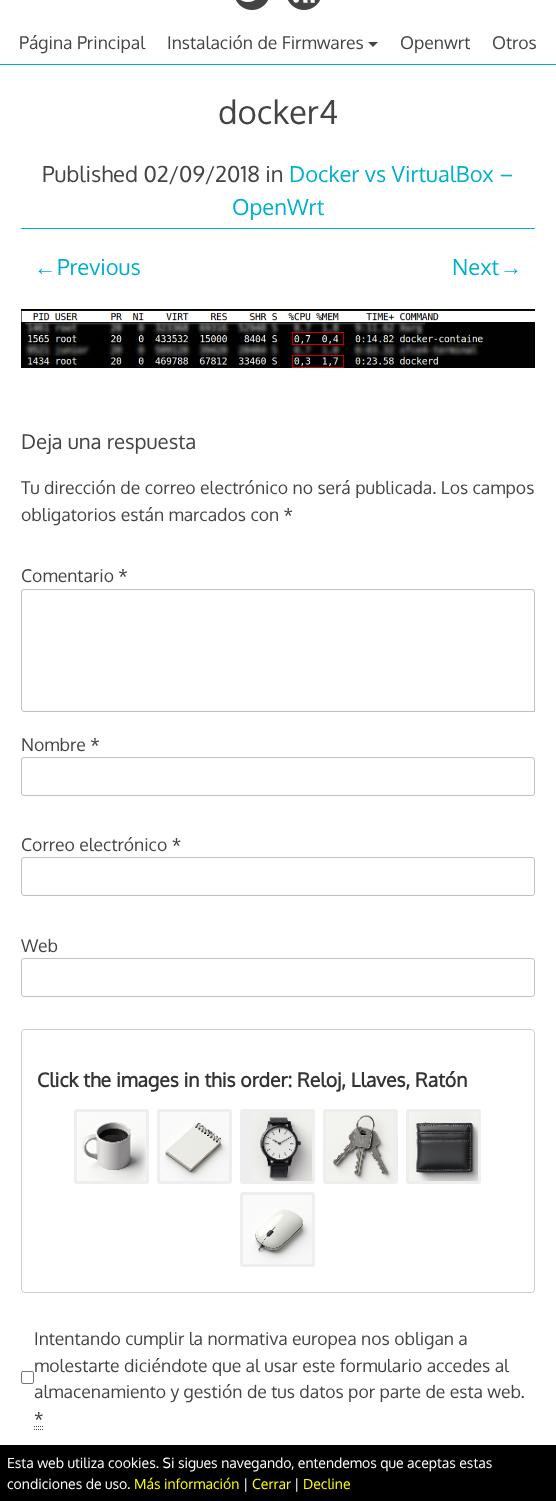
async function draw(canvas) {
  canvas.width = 556;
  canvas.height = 1501;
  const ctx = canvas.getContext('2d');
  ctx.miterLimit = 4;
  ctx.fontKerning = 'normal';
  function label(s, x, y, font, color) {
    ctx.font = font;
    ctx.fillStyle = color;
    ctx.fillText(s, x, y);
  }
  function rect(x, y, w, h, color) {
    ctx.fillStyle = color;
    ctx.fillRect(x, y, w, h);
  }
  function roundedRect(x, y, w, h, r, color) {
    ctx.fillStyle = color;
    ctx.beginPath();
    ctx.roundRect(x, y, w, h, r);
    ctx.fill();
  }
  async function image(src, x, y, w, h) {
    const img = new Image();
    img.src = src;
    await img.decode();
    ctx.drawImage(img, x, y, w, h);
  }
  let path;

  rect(0, 0, 556, 1501, '#fff');
  rect(0, 64, 556, 1, '#00b0cc');
  await image('assets/img1.png', 236, 0, 32, 10);
  await image('assets/img2.png', 288, 0, 32, 10);
  label('Página Principal', 19, 49, '17.6px Oxygen', '#444');
  label('Instalación de Firmwares', 167, 49, '17.6px Oxygen', '#444');
  path = new Path2D('M368 42H378L373 47Z');
  ctx.fill(path);
  label('Openwrt', 400, 49, '17.6px Oxygen', '#444');
  label('Otros', 492, 49, '17.6px Oxygen', '#444');
  label('docker4', 218, 124, '33px Oxygen', '#444');
  rect(21, 228, 514, 1, '#00b0cc');
  label('Published 02/09/2018 in', 42, 182, '22px Oxygen', '#444');
  label('Docker vs VirtualBox –', 289, 182, '22px Oxygen', '#00b0cc');
  label('OpenWrt', 232, 215, '22px Oxygen', '#00b0cc');
  label('←', 34, 275, '22px Liberation Sans', '#00b0cc');
  label('Previous', 57, 275, '22px Oxygen', '#00b0cc');
  label('Next', 452, 275, '22px Oxygen', '#00b0cc');
  label('→', 500, 275, '22px Liberation Sans', '#00b0cc');
  await image('assets/img3.png', 21, 309, 514, 59);
  label('Deja una respuesta', 21, 449, '20.5px Oxygen', '#444');
  label('Tu dirección de correo electrónico no será publicada. Los campos', 21, 494, '17.6px Oxygen', '#444');
  label('obligatorios están marcados con *', 21, 521, '17.6px Oxygen', '#444');
  label('Comentario *', 21, 582, '17.6px Oxygen', '#444');
  ctx.beginPath();
  ctx.roundRect(21.5, 589.5, 513, 122, [2.5, 2.5, 0, 2.5]);
  ctx.strokeStyle = '#c0c0c0';
  ctx.stroke();
  label('Nombre *', 21, 751, '17.6px Oxygen', '#444');
  ctx.beginPath();
  ctx.roundRect(21.5, 757.5, 513, 38, 2.5);
  ctx.stroke();
  label('Correo electrónico *', 21, 851, '17.6px Oxygen', '#444');
  ctx.beginPath();
  ctx.roundRect(21.5, 857.5, 513, 38, 2.5);
  ctx.stroke();
  label('Web', 21, 952, '17.6px Oxygen', '#444');
  ctx.beginPath();
  ctx.roundRect(21.5, 958.5, 513, 38, 2.5);
  ctx.stroke();
  ctx.beginPath();
  ctx.roundRect(21.5, 1029.5, 513, 263, 3.5);
  ctx.strokeStyle = '#ccd0d4';
  ctx.stroke();
  label('Click the images in this order: Reloj, Llaves, Ratón', 37, 1087, 'bold 19.4px Oxygen', '#333');
  roundedRect(74, 1109, 75, 75, 3, '#eee');
  await image('assets/img4.png', 77, 1112, 69, 69);
  roundedRect(157, 1109, 75, 75, 3, '#eee');
  await image('assets/img5.png', 160, 1112, 69, 69);
  roundedRect(240, 1109, 75, 75, 3, '#eee');
  await image('assets/img6.png', 252, 1112, 60, 69);
  roundedRect(323, 1109, 75, 75, 3, '#eee');
  await image('assets/img7.png', 326, 1112, 67, 69);
  roundedRect(406, 1109, 75, 75, 3, '#eee');
  await image('assets/img8.png', 409, 1112, 69, 69);
  roundedRect(240, 1192, 75, 75, 3, '#eee');
  await image('assets/img9.png', 243, 1195, 69, 69);
  ctx.beginPath();
  ctx.roundRect(21.5, 1371.5, 12, 12, 1.5);
  ctx.strokeStyle = '#767676';
  ctx.stroke();
  label('Intentando cumplir la normativa europea nos obligan a', 34, 1345, '17.6px Oxygen', '#444');
  label('molestarte diciéndote que al usar este formulario accedes al', 34, 1372, '17.6px Oxygen', '#444');
  label('almacenamiento y gestión de tus datos por parte de esta web.', 34, 1398, '17.6px Oxygen', '#444');
  label('*', 34, 1425, '17.6px Oxygen', '#444');
  path = new Path2D('M34 1429.5H43M34 1426.5H43.5');
  ctx.strokeStyle = '#444';
  ctx.setLineDash([1, 1]);
  ctx.stroke(path);
  rect(0, 1445, 556, 56, '#000');
  label('Esta web utiliza cookies. Si sigues navegando, entendemos que aceptas estas', 7, 1468, '14px Oxygen', '#fff');
  label('condiciones de uso.', 7, 1489, '14px Oxygen', '#fff');
  label('Más información', 134, 1489, '14px Oxygen', '#fdff00');
  label('|', 243, 1489, '14px Oxygen', '#fff');
  label('Cerrar', 252, 1489, '14px Oxygen', '#fdff00');
  label('|', 294, 1489, '14px Oxygen', '#fff');
  label('Decline', 303, 1489, '14px Oxygen', '#fdff00');
}

draw(document.querySelector('canvas'));
